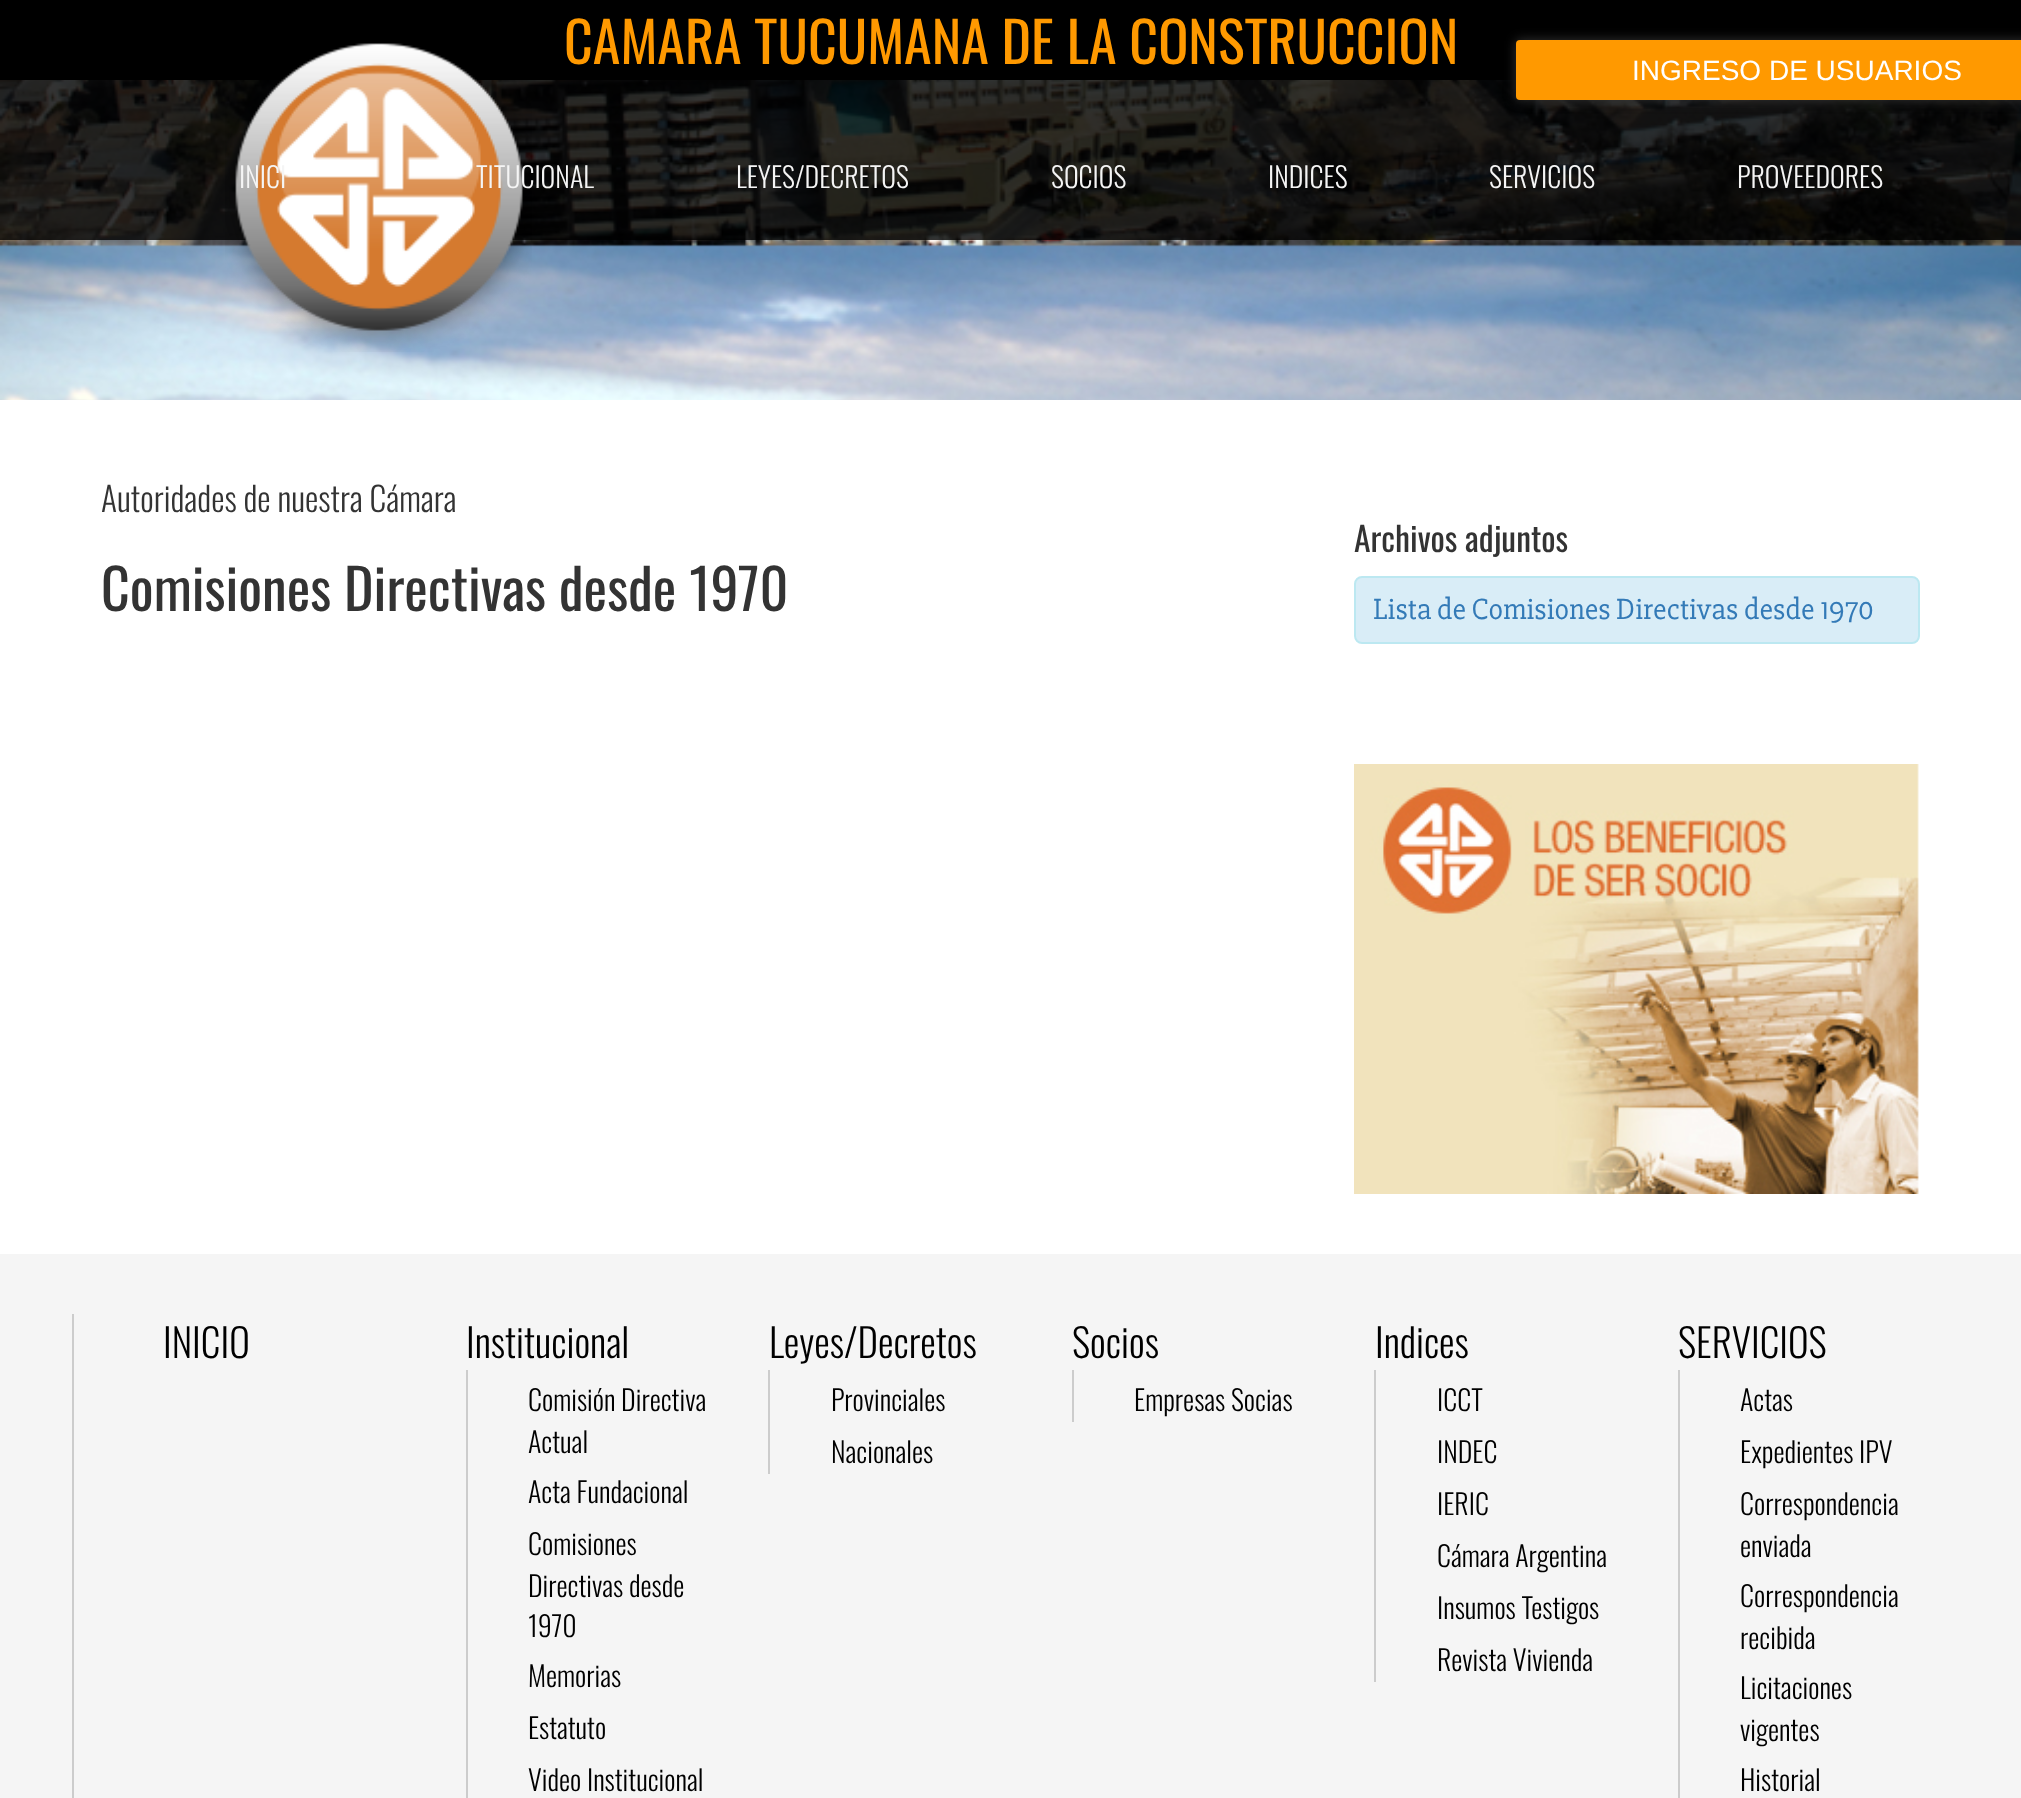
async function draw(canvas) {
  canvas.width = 2021;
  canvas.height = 1798;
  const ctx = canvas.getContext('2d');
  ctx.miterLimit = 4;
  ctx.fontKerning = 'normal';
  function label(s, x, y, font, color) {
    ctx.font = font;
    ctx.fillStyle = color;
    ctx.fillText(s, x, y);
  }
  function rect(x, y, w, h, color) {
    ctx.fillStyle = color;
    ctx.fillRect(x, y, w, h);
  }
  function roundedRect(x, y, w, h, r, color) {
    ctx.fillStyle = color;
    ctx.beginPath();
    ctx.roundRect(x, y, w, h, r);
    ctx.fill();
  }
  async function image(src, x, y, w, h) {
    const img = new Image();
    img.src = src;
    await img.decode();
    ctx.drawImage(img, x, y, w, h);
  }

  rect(0, 0, 2021, 1798, '#fff');
  rect(0, 0, 2021, 80, '#000');
  label('CAMARA TUCUMANA DE LA CONSTRUCCION', 564, 64, '56px Oswald', '#f90');
  await image('assets/img2.png', 0, 80, 2021, 320);
  rect(0, 80, 2021, 160, '#000000cc');
  await image('assets/img1.png', 225, 43, 307, 309);
  label('INICI', 239, 188, '300 28px Oswald', '#f5f5f5');
  label('TITUCIONAL', 476, 188, '300 28px Oswald', '#f5f5f5');
  label('LEYES/DECRETOS', 736, 188, '300 28px Oswald', '#f5f5f5');
  label('SOCIOS', 1051, 188, '300 28px Oswald', '#f5f5f5');
  label('INDICES', 1268, 188, '300 28px Oswald', '#f5f5f5');
  label('SERVICIOS', 1489, 188, '300 28px Oswald', '#f5f5f5');
  label('PROVEEDORES', 1737, 188, '300 28px Oswald', '#f5f5f5');
  ctx.fillStyle = '#333';
  ctx.filter = 'blur(6px)';
  ctx.beginPath();
  ctx.roundRect(1516, 40, 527, 60, 4);
  ctx.fill();
  ctx.filter = 'none';
  roundedRect(1516, 40, 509, 60, 4, '#f90');
  label('INGRESO DE USUARIOS', 1632, 80, '28px Liberation Sans', '#fff');
  label('Autoridades de nuestra Cámara', 101, 512, '300 33.6px Oswald', '#333');
  label('Comisiones Directivas desde 1970', 101, 611, '56px Oswald', '#333');
  label('Archivos adjuntos', 1354, 552, '33.6px Oswald', '#333');
  ctx.fillStyle = '#d9edf7';
  ctx.beginPath();
  ctx.roundRect(1355, 577, 564, 66, 7);
  ctx.fill();
  ctx.strokeStyle = '#bce8f1';
  ctx.lineWidth = 2;
  ctx.stroke();
  label('Lista de Comisiones Directivas desde 1970', 1373, 619, '30.25px "Slabo 27px"', '#337ab7');
  await image('assets/img3.png', 1354, 764, 565, 430);
  rect(0, 1254, 2021, 544, '#f5f5f5');
  rect(72, 1314, 2, 484, '#ccc');
  label('INICIO', 163, 1358, '300 39.25px Oswald', '#000');
  label('Institucional', 466, 1358, '300 39.25px Oswald', '#000');
  rect(466, 1370, 2, 428, '#ccc');
  label('Comisión Directiva', 528, 1411, '300 28px Oswald', '#000');
  label('Actual', 528, 1453, '300 28px Oswald', '#000');
  label('Acta Fundacional', 528, 1503, '300 28px Oswald', '#000');
  label('Comisiones', 528, 1555, '300 28px Oswald', '#000');
  label('Directivas desde', 528, 1597, '300 28px Oswald', '#000');
  label('1970', 528, 1637, '300 28px Oswald', '#000');
  label('Memorias', 528, 1687, '300 28px Oswald', '#000');
  label('Estatuto', 528, 1739, '300 28px Oswald', '#000');
  label('Video Institucional', 528, 1791, '300 28px Oswald', '#000');
  label('Leyes/Decretos', 769, 1358, '300 39.25px Oswald', '#000');
  rect(768, 1370, 2, 104, '#ccc');
  label('Provinciales', 831, 1411, '300 28px Oswald', '#000');
  label('Nacionales', 831, 1463, '300 28px Oswald', '#000');
  label('Socios', 1072, 1358, '300 39.25px Oswald', '#000');
  rect(1072, 1370, 2, 52, '#ccc');
  label('Empresas Socias', 1134, 1411, '300 28px Oswald', '#000');
  label('Indices', 1375, 1358, '300 39.25px Oswald', '#000');
  rect(1374, 1370, 2, 312, '#ccc');
  label('ICCT', 1437, 1411, '300 28px Oswald', '#000');
  label('INDEC', 1437, 1463, '300 28px Oswald', '#000');
  label('IERIC', 1437, 1515, '300 28px Oswald', '#000');
  label('Cámara Argentina', 1437, 1567, '300 28px Oswald', '#000');
  label('Insumos Testigos', 1437, 1619, '300 28px Oswald', '#000');
  label('Revista Vivienda', 1437, 1671, '300 28px Oswald', '#000');
  label('SERVICIOS', 1678, 1358, '300 39.25px Oswald', '#000');
  rect(1678, 1370, 2, 428, '#ccc');
  label('Actas', 1740, 1411, '300 28px Oswald', '#000');
  label('Expedientes IPV', 1740, 1463, '300 28px Oswald', '#000');
  label('Correspondencia', 1740, 1515, '300 28px Oswald', '#000');
  label('enviada', 1740, 1557, '300 28px Oswald', '#000');
  label('Correspondencia', 1740, 1607, '300 28px Oswald', '#000');
  label('recibida', 1740, 1649, '300 28px Oswald', '#000');
  label('Licitaciones', 1740, 1699, '300 28px Oswald', '#000');
  label('vigentes', 1740, 1741, '300 28px Oswald', '#000');
  label('Historial', 1740, 1791, '300 28px Oswald', '#000');
}

draw(document.querySelector('canvas'));
